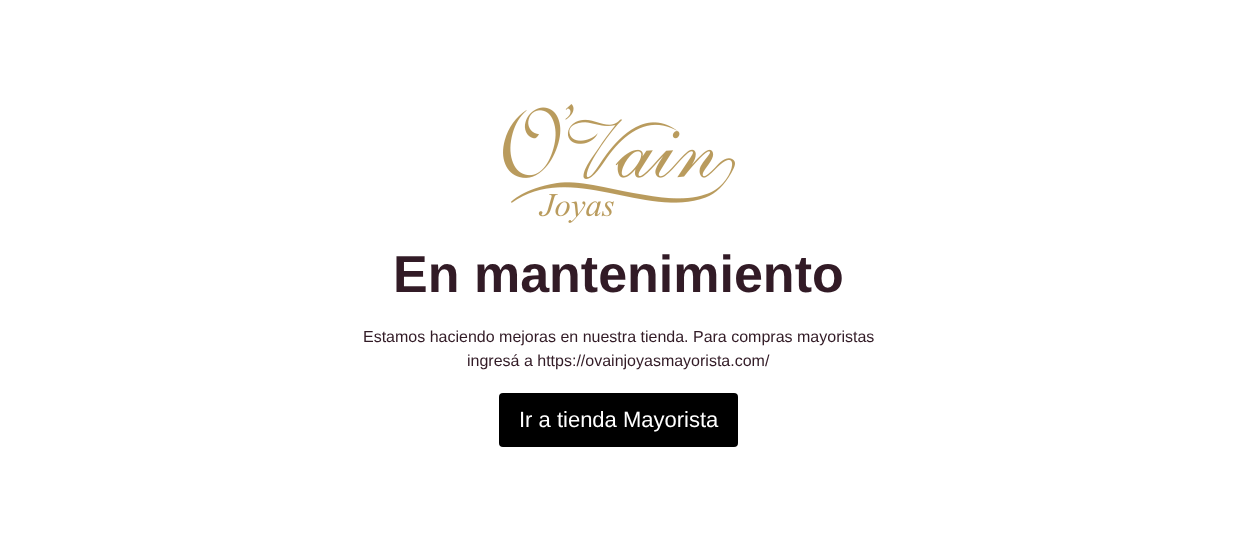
async function draw(canvas) {
  canvas.width = 1237;
  canvas.height = 551;
  const ctx = canvas.getContext('2d');
  ctx.miterLimit = 4;
  ctx.fontKerning = 'normal';
  function label(s, x, y, font, color) {
    ctx.font = font;
    ctx.fillStyle = color;
    ctx.fillText(s, x, y);
  }
  function rect(x, y, w, h, color) {
    ctx.fillStyle = color;
    ctx.fillRect(x, y, w, h);
  }
  function roundedRect(x, y, w, h, r, color) {
    ctx.fillStyle = color;
    ctx.beginPath();
    ctx.roundRect(x, y, w, h, r);
    ctx.fill();
  }
  async function image(src, x, y, w, h) {
    const img = new Image();
    img.src = src;
    await img.decode();
    ctx.drawImage(img, x, y, w, h);
  }

  rect(0, 0, 1237, 551, '#fff');
  await image('assets/img1.png', 503, 104, 232, 119);
  label('En mantenimiento', 393, 292, 'bold 52px Liberation Sans', '#321b26');
  label('Estamos haciendo mejoras en nuestra tienda. Para compras mayoristas', 363, 342, '16px Liberation Sans', '#321b26');
  label('ingresá a https://ovainjoyasmayorista.com/', 467, 366, '16px Liberation Sans', '#321b26');
  roundedRect(499, 393, 239, 54, 4, '#000');
  label('Ir a tienda Mayorista', 519, 427, '22px Liberation Sans', '#fff');
}

draw(document.querySelector('canvas'));
